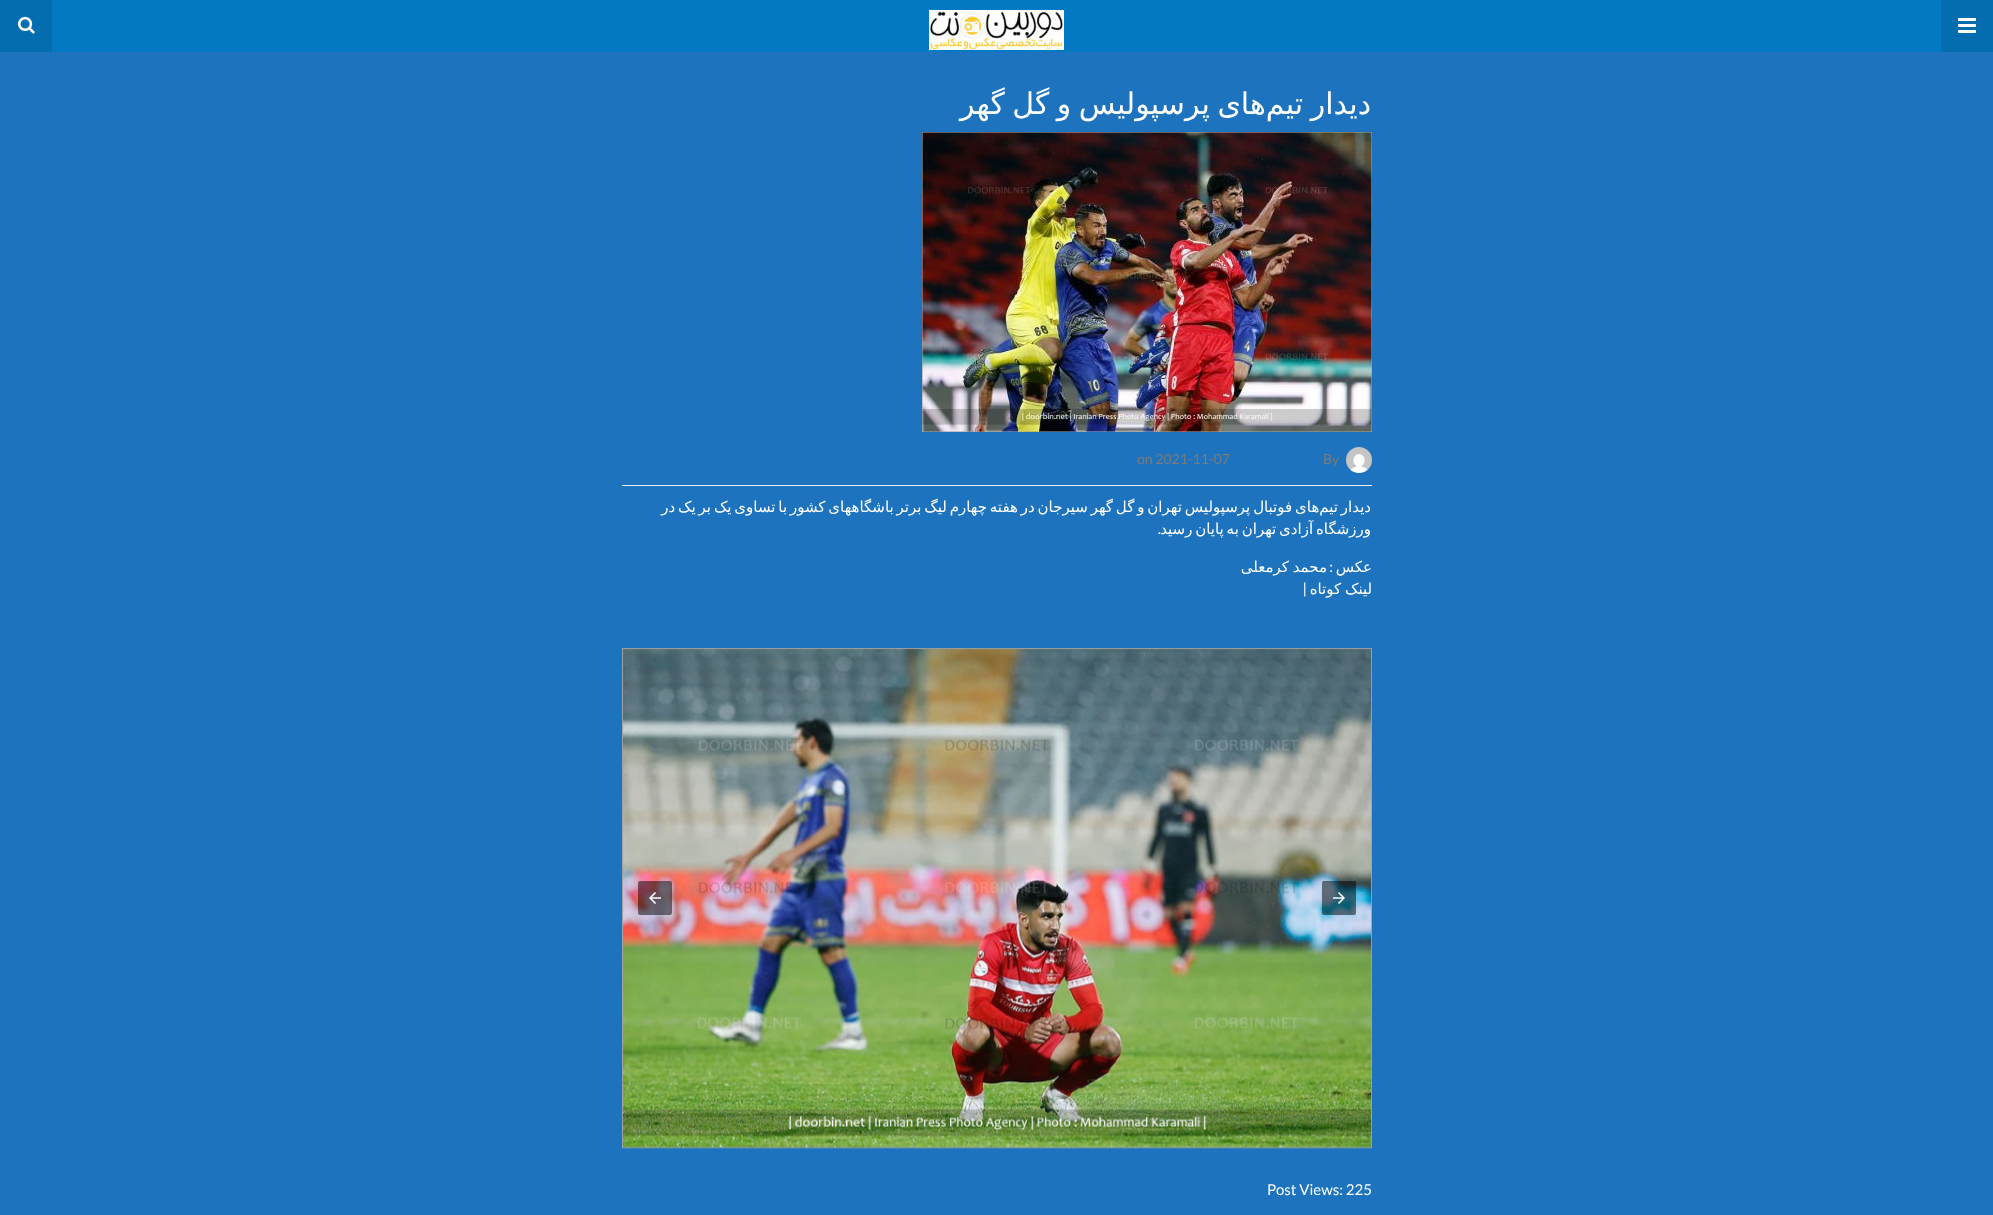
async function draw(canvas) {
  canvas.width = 1993;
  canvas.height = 1215;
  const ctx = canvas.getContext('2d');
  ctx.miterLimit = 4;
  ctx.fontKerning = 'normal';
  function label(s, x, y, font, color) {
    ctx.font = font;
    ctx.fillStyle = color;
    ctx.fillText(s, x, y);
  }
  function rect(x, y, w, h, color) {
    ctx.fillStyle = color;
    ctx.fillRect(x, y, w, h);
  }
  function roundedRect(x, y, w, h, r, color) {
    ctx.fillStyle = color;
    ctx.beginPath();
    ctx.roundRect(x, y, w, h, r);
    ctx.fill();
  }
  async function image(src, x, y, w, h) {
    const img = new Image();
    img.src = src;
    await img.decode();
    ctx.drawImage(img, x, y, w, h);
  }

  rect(0, 0, 1993, 1215, '#1e73be');
  rect(52, 0, 1889, 52, '#0379c4');
  rect(1941, 0, 52, 52, '#036db0');
  await image('assets/img1.png', 1958, 18, 18, 15);
  await image('assets/img2.png', 929, 10, 135, 40);
  rect(0, 0, 52, 52, '#036db0');
  await image('assets/img3.png', 18, 16, 17, 18);
  ctx.wordSpacing = '-2px';
  ctx.direction = 'rtl';
  label('دیدار تیم‌های پرسپولیس و گل گهر', 1371, 114, '30px DejaVu Sans', '#fff');
  await image('assets/img4.png', 922, 132, 450, 300);
  rect(622, 485, 750, 1, '#eee');
  await image('assets/img5.png', 1346, 447, 26, 26);
  ctx.wordSpacing = '0px';
  ctx.direction = 'ltr';
  label('By', 1323, 464, '14px Lato', '#7b7b7b');
  label('on 2021-11-07', 1137, 464, '14px Lato', '#7b7b7b');
  ctx.wordSpacing = '-1.9px';
  ctx.direction = 'rtl';
  label('دیدار تیم‌های فوتبال پرسپولیس تهران و گل گهر سیرجان در هفته چهارم لیگ برتر باشگاههای کشور با تساوی یک بر یک در', 1371, 512, '15px DejaVu Sans', '#fff');
  label('ورزشگاه آزادی تهران به پایان رسید', 1371, 534, '15px DejaVu Sans', '#fff');
  ctx.wordSpacing = '0px';
  label('.', 1161, 534, '15px Lato', '#fff');
  label('عکس', 1372, 572, '15px DejaVu Sans', '#fff');
  label(':', 1333, 572, '15px Lato', '#fff');
  ctx.wordSpacing = '-1px';
  label('محمد کرمعلی', 1327, 572, '15px DejaVu Sans', '#fff');
  label('لینک کوتاه', 1372, 594, '15px DejaVu Sans', '#fff');
  ctx.wordSpacing = '0px';
  label('|', 1307, 594, '15px Lato', '#fff');
  await image('assets/img6.png', 622, 648, 750, 501);
  roundedRect(1322, 881, 34, 34, 2, '#00000080');
  await image('assets/img7.png', 1333, 892, 12, 12);
  roundedRect(638, 881, 34, 34, 2, '#00000080');
  await image('assets/img8.png', 649, 892, 12, 12);
  ctx.direction = 'ltr';
  label('Post Views: 225', 1267, 1195, '15px Lato', '#fff');
}

draw(document.querySelector('canvas'));
